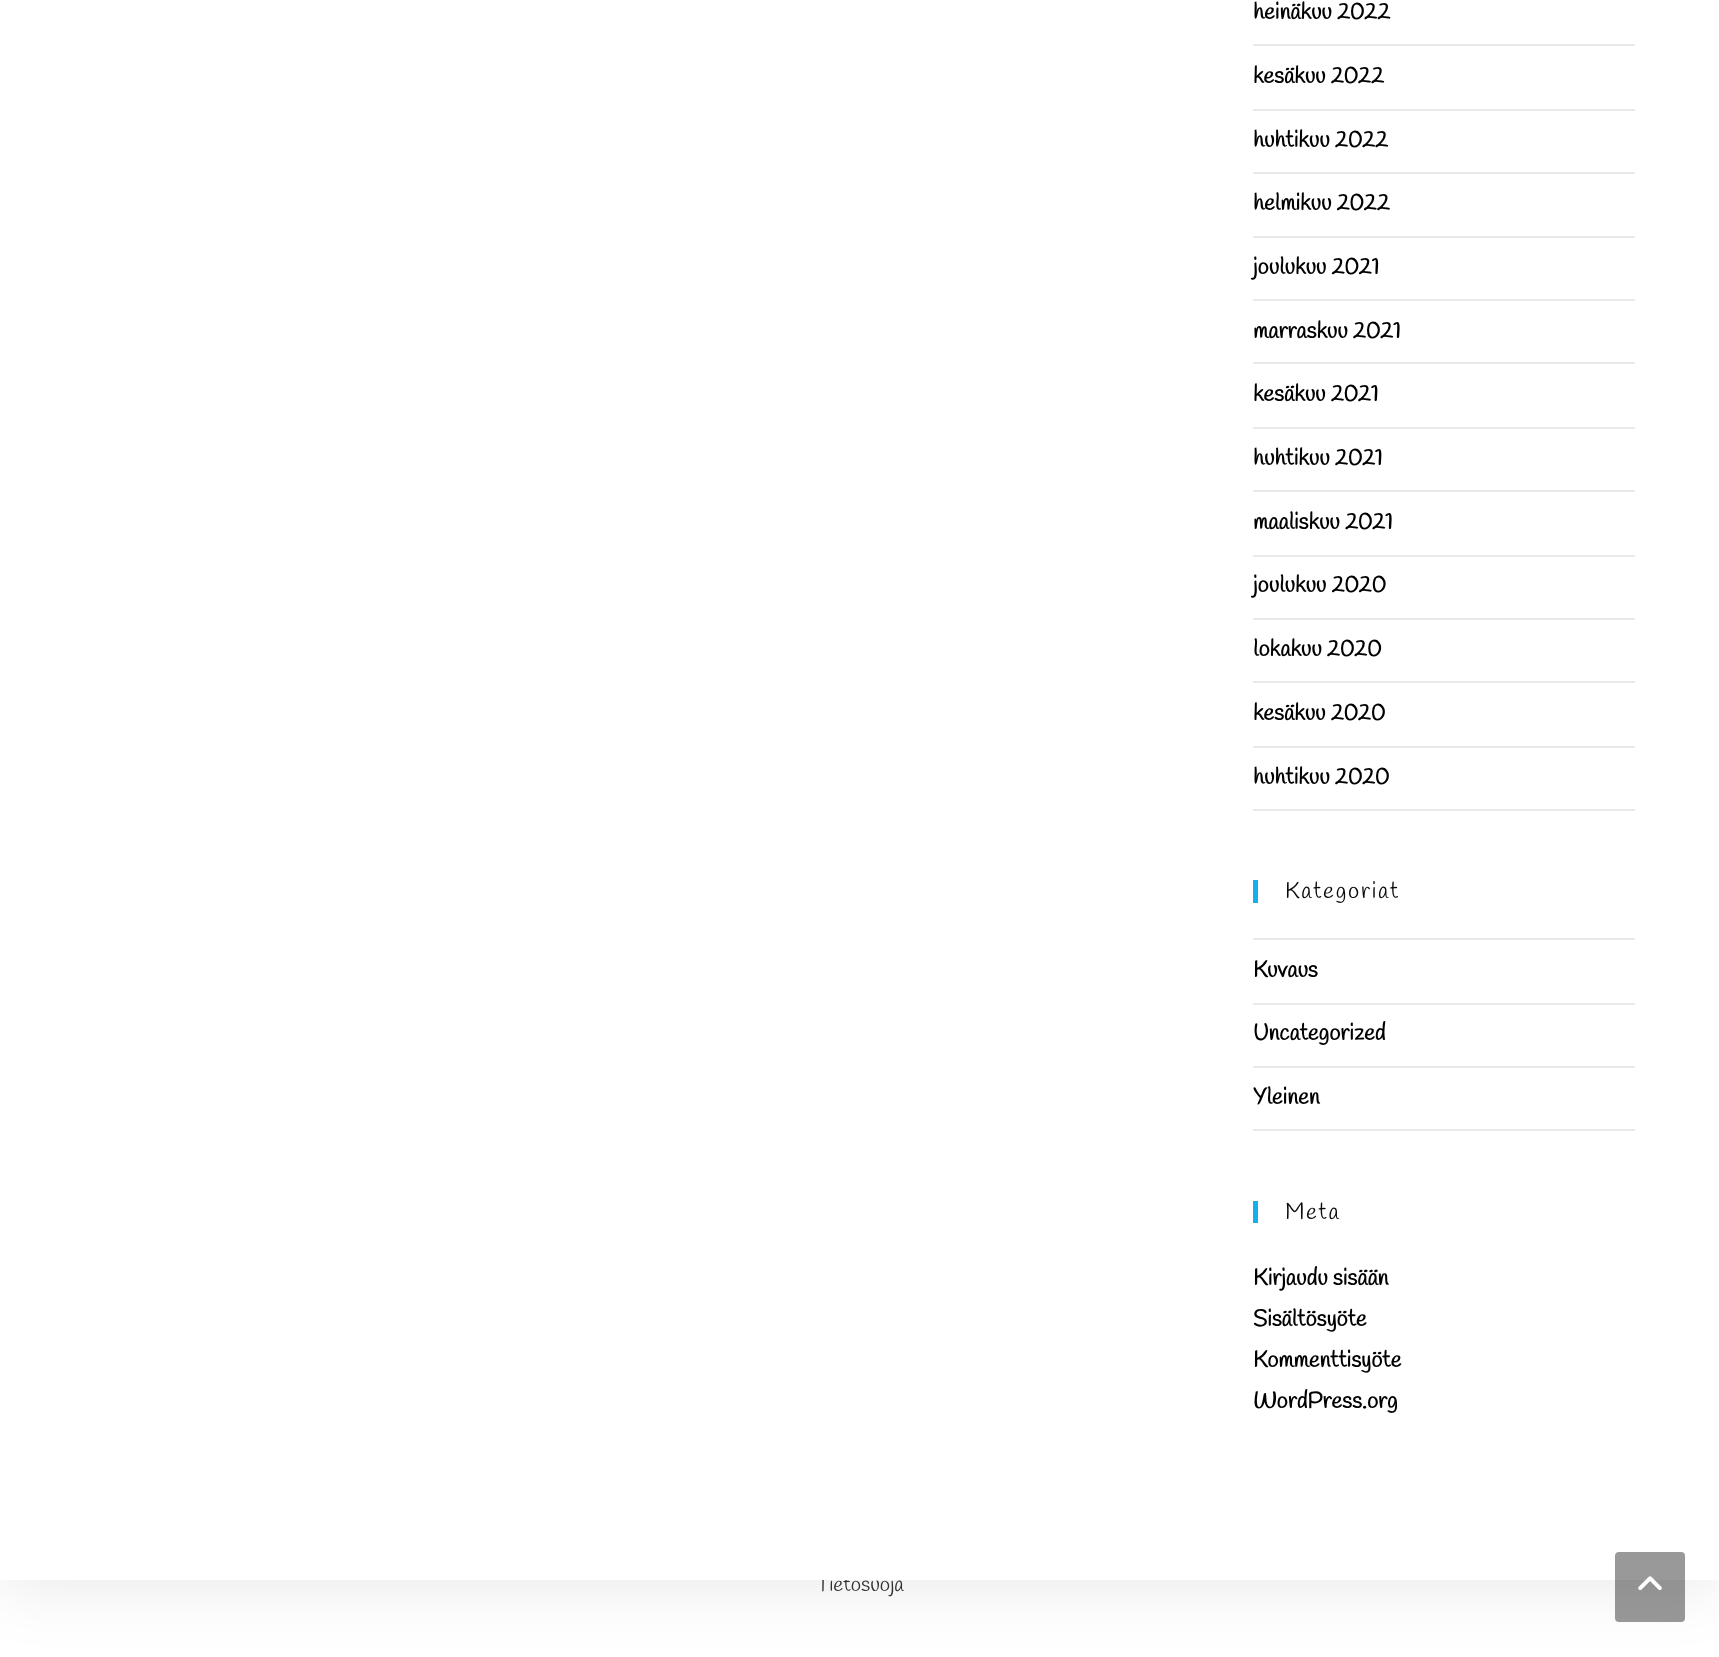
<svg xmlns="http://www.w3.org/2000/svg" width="1719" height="1657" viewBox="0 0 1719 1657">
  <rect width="100%" height="100%" fill="#fff"/>
  <path d="M0 -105h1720v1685H0z" fill="#0000001a" filter="blur(35px)"/>
  <text x="816" y="1591" font-family="Handlee" font-size="21" fill="#313131">Tietosuoja</text>
  <path d="M0 0h1719v1580H0z" fill="#fff"/>
  <g font-family="Handlee" font-size="22.75" font-weight="bold" fill="#000">
    <text x="1253" y="1408">WordPress.org</text>
    <text x="1253" y="1367">Kommenttisyöte</text>
    <text x="1253" y="1326">Sisältösyöte</text>
    <text x="1253" y="1285">Kirjaudu sisään</text>
  </g>
  <text x="1285" y="1219" font-family="Handlee" font-size="22.75" letter-spacing="1.75" fill="#0a0a0a">Meta</text>
  <g font-family="Handlee" font-size="22.75" font-weight="bold" fill="#000">
    <text x="1253" y="1104">Yleinen</text>
    <text x="1253" y="1040">Uncategorized</text>
    <text x="1253" y="977">Kuvaus</text>
  </g>
  <text x="1285" y="898" font-family="Handlee" font-size="22.75" letter-spacing="1.75" fill="#0a0a0a">Kategoriat</text>
  <g font-family="Handlee" font-size="22.75" font-weight="bold" fill="#000">
    <text x="1253" y="784">huhtikuu 2020</text>
    <text x="1253" y="720">kesäkuu 2020</text>
    <text x="1253" y="656">lokakuu 2020</text>
    <text x="1253" y="592">joulukuu 2020</text>
    <text x="1253" y="529">maaliskuu 2021</text>
    <text x="1253" y="465">huhtikuu 2021</text>
    <text x="1253" y="401">kesäkuu 2021</text>
    <text x="1253" y="338">marraskuu 2021</text>
    <text x="1253" y="274">joulukuu 2021</text>
    <text x="1253" y="210">helmikuu 2022</text>
    <text x="1253" y="147">huhtikuu 2022</text>
    <text x="1253" y="83">kesäkuu 2022</text>
    <text x="1253" y="19">heinäkuu 2022</text>
  </g>
  <path d="M1253 1201h5v22H1253z" fill="#13aff0"/>
  <path d="M1253 1129h382v2H1253z" fill="#e9e9e9"/>
  <path d="M1253 1066h382v2H1253z" fill="#e9e9e9"/>
  <path d="M1253 1003h382v2H1253z" fill="#e9e9e9"/>
  <path d="M1253 938h382v2H1253z" fill="#e9e9e9"/>
  <path d="M1253 880h5v23H1253z" fill="#13aff0"/>
  <path d="M1253 809h382v2H1253z" fill="#e9e9e9"/>
  <path d="M1253 746h382v2H1253z" fill="#e9e9e9"/>
  <path d="M1253 681h382v2H1253z" fill="#e9e9e9"/>
  <path d="M1253 618h382v2H1253z" fill="#e9e9e9"/>
  <path d="M1253 555h382v2H1253z" fill="#e9e9e9"/>
  <path d="M1253 490h382v2H1253z" fill="#e9e9e9"/>
  <path d="M1253 427h382v2H1253z" fill="#e9e9e9"/>
  <path d="M1253 362h382v2H1253z" fill="#e9e9e9"/>
  <path d="M1253 299h382v2H1253z" fill="#e9e9e9"/>
  <path d="M1253 236h382v2H1253z" fill="#e9e9e9"/>
  <path d="M1253 172h382v2H1253z" fill="#e9e9e9"/>
  <path d="M1253 109h382v2H1253z" fill="#e9e9e9"/>
  <path d="M1253 44h382v2H1253z" fill="#e9e9e9"/>
  <rect x="1615" y="1552" width="70" height="70" rx="4" fill="#00000066"/>
  <image x="1638" y="1576" width="24" height="14" href="img/1.png"/>
</svg>
